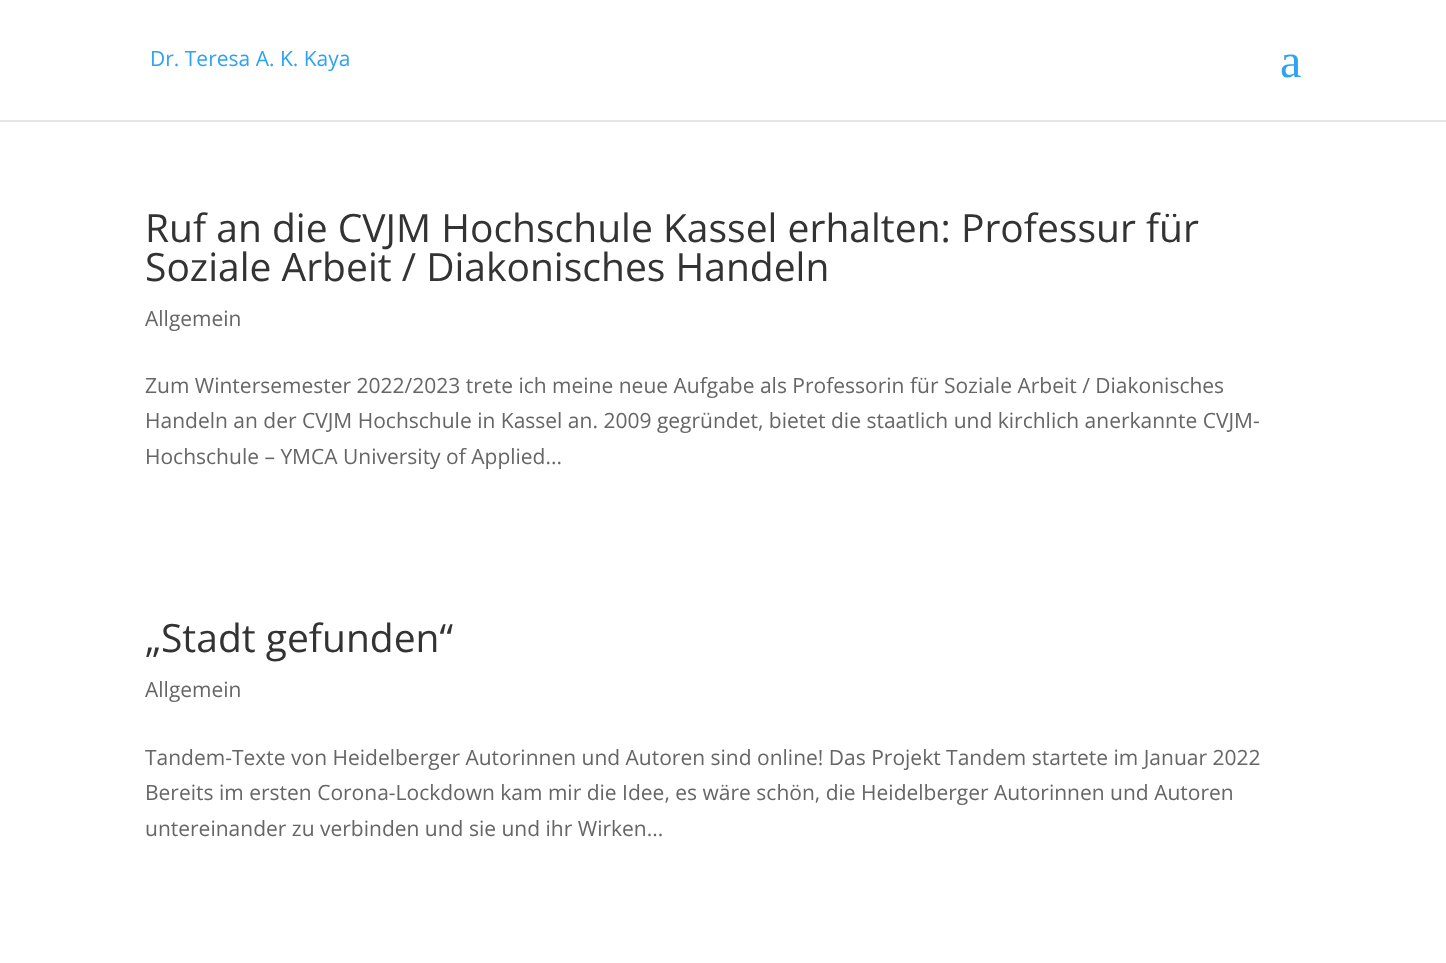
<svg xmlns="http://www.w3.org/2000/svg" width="1446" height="963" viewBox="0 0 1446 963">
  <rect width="100%" height="100%" fill="#fff"/>
  <path d="M0 120h1446v2H0z" fill="#e6e6e6"/>
  <text x="150" y="66" font-family="Open Sans" font-size="21" fill="#2ea3f2">Dr. Teresa A. K. Kaya</text>
  <text x="1280" y="77" font-family="Liberation Serif" font-size="48" fill="#2ea3f2">a</text>
  <g font-family="Open Sans" font-size="39" fill="#333">
    <text x="145" y="242">Ruf an die CVJM Hochschule Kassel erhalten: Professur für</text>
    <text x="145" y="281">Soziale Arbeit / Diakonisches Handeln</text>
  </g>
  <g font-family="Open Sans" font-size="21" fill="#666">
    <text x="145" y="326">Allgemein</text>
    <text x="145" y="393">Zum Wintersemester 2022/2023 trete ich meine neue Aufgabe als Professorin für Soziale Arbeit / Diakonisches</text>
    <text x="145" y="428">Handeln an der CVJM Hochschule in Kassel an. 2009 gegründet, bietet die staatlich und kirchlich anerkannte CVJM-</text>
    <text x="145" y="464">Hochschule – YMCA University of Applied...</text>
  </g>
  <text x="145" y="652" font-family="Open Sans" font-size="39" fill="#333">„Stadt gefunden“</text>
  <g font-family="Open Sans" font-size="21" fill="#666">
    <text x="145" y="697">Allgemein</text>
    <text x="145" y="765">Tandem-Texte von Heidelberger Autorinnen und Autoren sind online! Das Projekt Tandem startete im Januar 2022</text>
    <text x="145" y="800">Bereits im ersten Corona-Lockdown kam mir die Idee, es wäre schön, die Heidelberger Autorinnen und Autoren</text>
    <text x="145" y="836">untereinander zu verbinden und sie und ihr Wirken...</text>
  </g>
</svg>
